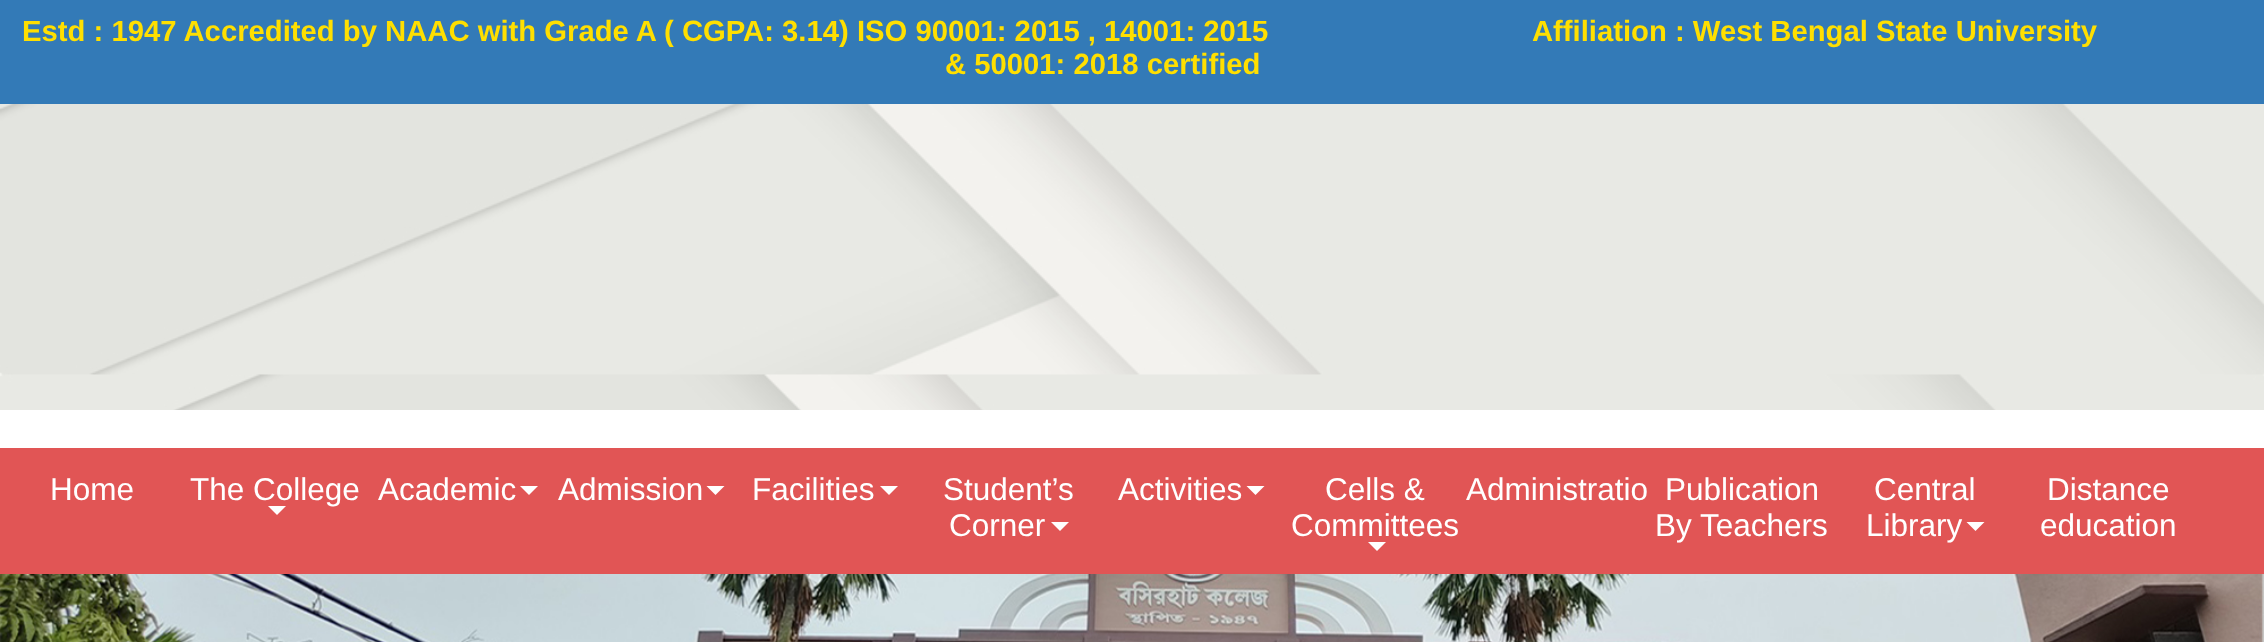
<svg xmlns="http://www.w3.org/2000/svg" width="2264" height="642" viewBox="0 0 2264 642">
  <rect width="100%" height="100%" fill="#fff"/>
  <image x="0" y="104" width="2264" height="306" href="img/1.png"/>
  <path d="M0 0h2264v104H0z" fill="#337ab7"/>
  <image x="0" y="574" width="2264" height="68" href="img/2.png"/>
  <path d="M0 448h2264v126H0z" fill="#e15555"/>
  <path d="M268 506H286L277 515Z" fill="#fff"/>
  <path d="M520 486H538L529 495Z" fill="#fff"/>
  <path d="M706.5 486H724.5L715.5 495Z" fill="#fff"/>
  <path d="M880 486H898L889 495Z" fill="#fff"/>
  <path d="M1051 522H1069L1060 531Z" fill="#fff"/>
  <path d="M1246.5 486H1264.5L1255.5 495Z" fill="#fff"/>
  <path d="M1368 542H1386L1377 551Z" fill="#fff"/>
  <path d="M1966.5 522H1984.5L1975.5 531Z" fill="#fff"/>
  <g font-family="Liberation Sans" font-size="29.25" font-weight="bold" fill="#ffdf00">
    <text x="22" y="41">Estd : 1947 Accredited by NAAC with Grade A ( CGPA: 3.14) ISO 90001: 2015 , 14001: 2015</text>
    <text x="945" y="74">&amp; 50001: 2018 certified</text>
    <text x="1532" y="41">Affiliation : West Bengal State University</text>
  </g>
  <g font-family="Liberation Sans" font-size="31.5" fill="#fff">
    <text x="50" y="500">Home</text>
    <text x="190" y="500">The College</text>
    <text x="378" y="500">Academic</text>
    <text x="558" y="500">Admission</text>
    <text x="752" y="500">Facilities</text>
    <text x="943" y="500">Student’s</text>
    <text x="949" y="536">Corner</text>
    <text x="1118" y="500">Activities</text>
    <text x="1325" y="500">Cells &amp;</text>
    <text x="1291" y="536">Committees</text>
    <text x="1466" y="500">Administratio</text>
    <text x="1665" y="500">Publication</text>
    <text x="1655" y="536">By Teachers</text>
    <text x="1874" y="500">Central</text>
    <text x="1866" y="536">Library</text>
    <text x="2047" y="500">Distance</text>
    <text x="2040" y="536">education</text>
  </g>
</svg>
